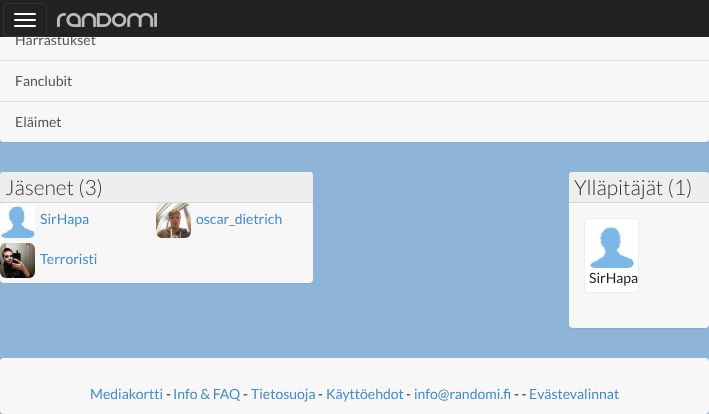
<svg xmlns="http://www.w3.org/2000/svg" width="709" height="414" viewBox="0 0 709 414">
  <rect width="100%" height="100%" fill="#8eb4d7"/>
  <rect y="-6" width="709" height="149" rx="4" fill="#0000000d" filter="blur(0.5px)"/>
  <rect y="-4" width="709" height="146" rx="4" fill="#f7f7f7"/>
  <path d="M0 60h709v1H0z" fill="#ddd"/>
  <path d="M0 101H709V139C709 140.5 707.5 142 706 142H3C1.5 142 0 140.5 0 139Z" fill="#f7f7f7"/>
  <path d="M0 101h709v1H0z" fill="#ddd"/>
  <rect y="173" width="313" height="111" rx="4" fill="#0000000d" filter="blur(0.5px)"/>
  <rect y="172" width="313" height="111" rx="4" fill="#f7f7f7"/>
  <path d="M3 172H310C311.5 172 313 173.5 313 175V203H0V175C0 173.5 1.5 172 3 172Z" fill="#eee"/>
  <path d="M0 202h313v1H0z" fill="#d3d3d3"/>
  <image x="0" y="203" width="35" height="35" href="img/2.png"/>
  <image x="156" y="203" width="35" height="35" href="img/3.png"/>
  <image x="0" y="243" width="35" height="35" href="img/4.png"/>
  <rect x="569" y="173" width="140" height="156" rx="4" fill="#0000000d" filter="blur(0.5px)"/>
  <rect x="569" y="172" width="140" height="156" rx="4" fill="#f7f7f7"/>
  <path d="M572 172H706C707.5 172 709 173.5 709 175V203H569V175C569 173.5 570.5 172 572 172Z" fill="#eee"/>
  <path d="M569 202h140v1H569z" fill="#d3d3d3"/>
  <rect x="584.5" y="218.5" width="54" height="74" rx="3.5" fill="#fff" stroke="#eee"/>
  <image x="589" y="223" width="45" height="45" href="img/5.png"/>
  <rect y="359" width="709" height="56" rx="4" fill="#0000000d" filter="blur(0.5px)"/>
  <rect y="358" width="709" height="56" rx="4" fill="#f7f7f7"/>
  <text x="15" y="45" font-family="Lato" font-size="14" fill="#555">Harrastukset</text>
  <path d="M0 0h709v37H0z" fill="#222"/>
  <image x="57" y="13" width="100" height="14" href="img/1.png"/>
  <rect x="3.5" y="3.5" width="43" height="33" rx="3.5" fill="none" stroke="#333"/>
  <rect x="14" y="25" width="22" height="2" rx="1" fill="#fff"/>
  <rect x="14" y="19" width="22" height="2" rx="1" fill="#fff"/>
  <rect x="14" y="13" width="22" height="2" rx="1" fill="#fff"/>
  <g font-family="Lato" font-size="14" fill="#555">
    <text x="15" y="86">Fanclubit</text>
    <text x="15" y="127">Eläimet</text>
  </g>
  <text x="5" y="195" font-family="Lato" font-size="21" font-weight="300" fill="#333">Jäsenet (3)</text>
  <g font-family="Lato" font-size="14" fill="#428bca">
    <text x="40" y="224">SirHapa</text>
    <text x="196" y="224">oscar_dietrich</text>
    <text x="40" y="264">Terroristi</text>
  </g>
  <text x="574" y="195" font-family="Lato" font-size="21" font-weight="300" fill="#333">Ylläpitäjät (1)</text>
  <text x="589" y="283" font-family="Lato" font-size="14" fill="#222">SirHapa</text>
  <text x="90" y="399" font-family="Lato" font-size="14" fill="#428bca">Mediakortti</text>
  <text x="166" y="399" font-family="Lato" font-size="14" fill="#222">-</text>
  <text x="173" y="399" font-family="Lato" font-size="14" fill="#428bca">Info &amp; FAQ</text>
  <text x="243" y="399" font-family="Lato" font-size="14" fill="#222">-</text>
  <text x="251" y="399" font-family="Lato" font-size="14" fill="#428bca">Tietosuoja</text>
  <text x="318" y="399" font-family="Lato" font-size="14" fill="#222">-</text>
  <text x="326" y="399" font-family="Lato" font-size="14" fill="#428bca">Käyttöehdot</text>
  <text x="406" y="399" font-family="Lato" font-size="14" fill="#222">-</text>
  <text x="414" y="399" font-family="Lato" font-size="14" fill="#428bca">info@randomi.fi</text>
  <text x="514" y="399" font-family="Lato" font-size="14" fill="#222">- -</text>
  <text x="529" y="399" font-family="Lato" font-size="14" fill="#428bca">Evästevalinnat</text>
</svg>
